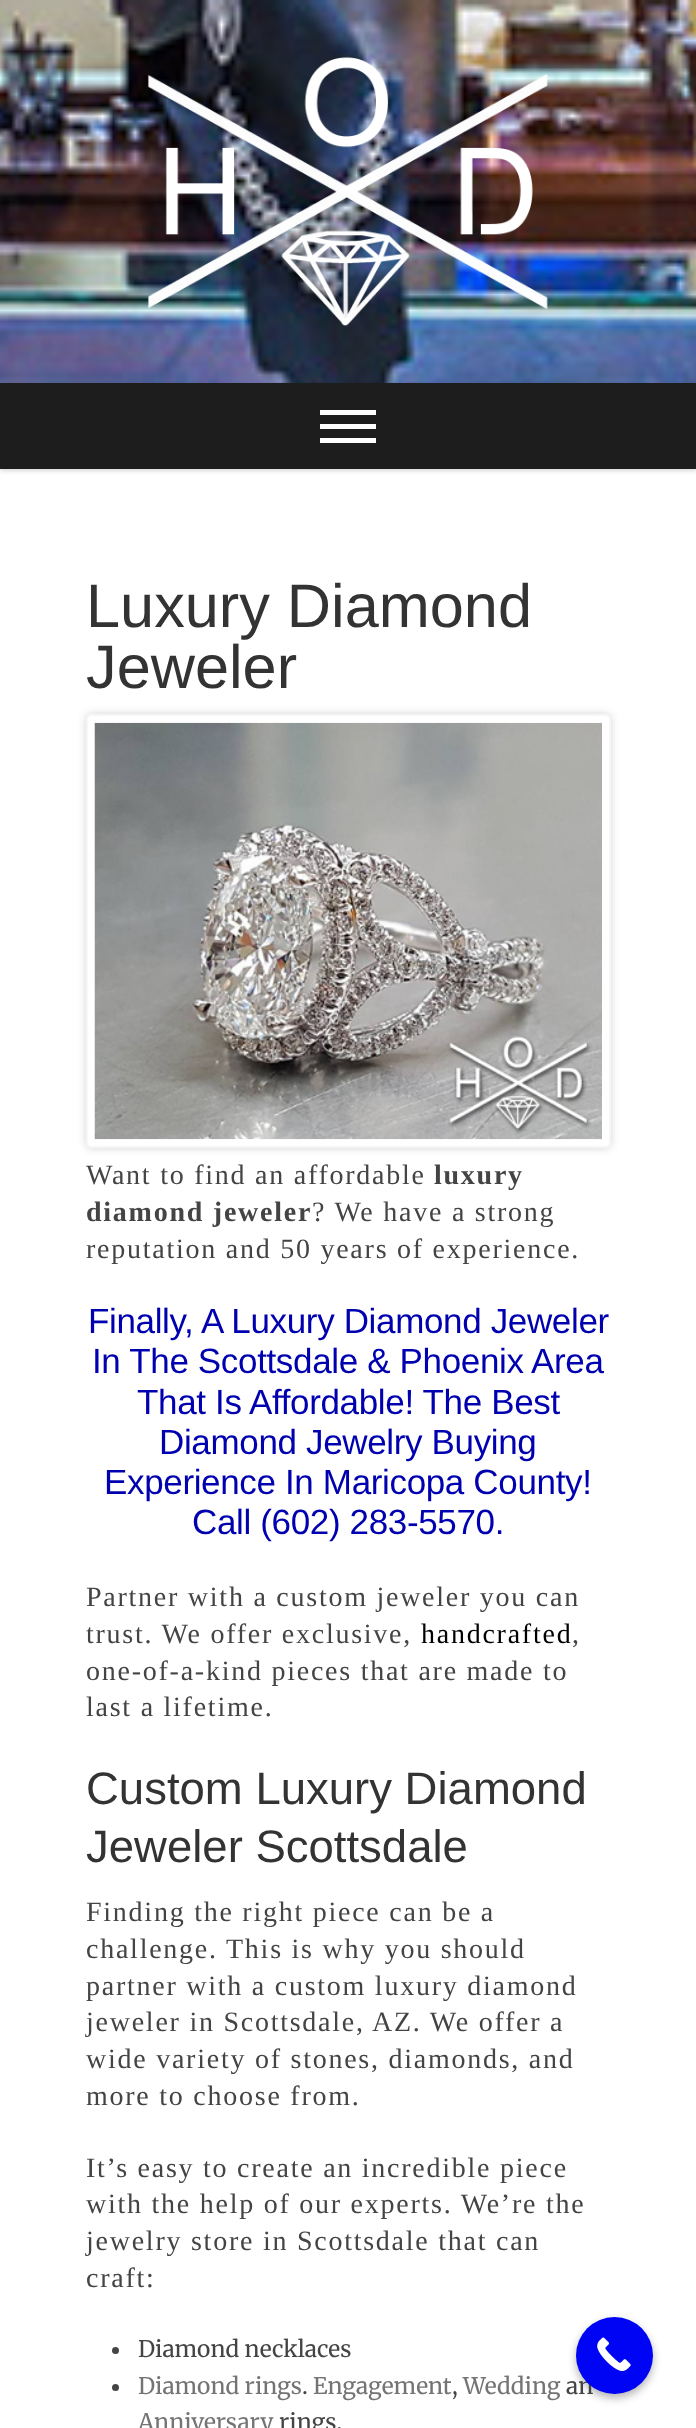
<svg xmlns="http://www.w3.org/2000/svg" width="696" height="2428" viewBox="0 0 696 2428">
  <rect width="100%" height="100%" fill="#fff"/>
  <image x="0" y="0" width="696" height="383" href="img/1.png"/>
  <image x="147" y="57" width="401" height="269" href="img/2.png"/>
  <path d="M0 385h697v86H0z" fill="#00000026" filter="blur(2px)"/>
  <path d="M0 383h696v86H0z" fill="#1d1d1d"/>
  <path d="M320 410h56v5H320z" fill="#fff"/>
  <path d="M320 424h56v5H320z" fill="#fff"/>
  <path d="M320 438h56v5H320z" fill="#fff"/>
  <rect x="86" y="714" width="525" height="434" rx="5" fill="#0000002b" filter="blur(4.5px)"/>
  <rect x="87" y="715" width="523" height="432" rx="4" fill="#fff" stroke="#f6f6f6" stroke-width="2"/>
  <image x="94" y="722" width="508" height="418" href="img/3.png"/>
  <circle cx="115.5" cy="2350.5" r="3.5" fill="#444"/>
  <circle cx="115.5" cy="2387.5" r="3.5" fill="#444"/>
  <rect x="576" y="2321" width="77" height="77" rx="38.5" fill="#0000004d" filter="blur(4px)"/>
  <g font-family="Liberation Sans" font-size="61.25" fill="#333">
    <text x="86" y="627">Luxury Diamond</text>
    <text x="86" y="688">Jeweler</text>
  </g>
  <text x="86" y="1184" font-family="Liberation Serif" font-size="28" letter-spacing="1.75" fill="#444">Want to find an affordable</text>
  <g font-family="Liberation Serif" font-size="28" font-weight="bold" letter-spacing="1.75" fill="#444">
    <text x="434" y="1184">luxury</text>
    <text x="86" y="1221">diamond jeweler</text>
  </g>
  <g font-family="Liberation Serif" font-size="28" letter-spacing="1.75" fill="#444">
    <text x="312" y="1221">? We have a strong</text>
    <text x="86" y="1258">reputation and 50 years of experience.</text>
  </g>
  <g font-family="Liberation Sans" font-size="35" letter-spacing="-0.35" fill="#0000b1">
    <text x="88" y="1333">Finally, A Luxury Diamond Jeweler</text>
    <text x="92" y="1373">In The Scottsdale &amp; Phoenix Area</text>
    <text x="137" y="1414">That Is Affordable! The Best</text>
    <text x="159" y="1454">Diamond Jewelry Buying</text>
    <text x="104" y="1494">Experience In Maricopa County!</text>
    <text x="192" y="1534">Call (602) 283-5570.</text>
  </g>
  <g font-family="Liberation Serif" font-size="28" letter-spacing="1.75" fill="#444">
    <text x="86" y="1606">Partner with a custom jeweler you can</text>
    <text x="86" y="1643">trust. We offer exclusive,</text>
  </g>
  <text x="421" y="1643" font-family="Liberation Serif" font-size="28" letter-spacing="1.75" fill="#000">handcrafted</text>
  <g font-family="Liberation Serif" font-size="28" letter-spacing="1.75" fill="#444">
    <text x="572" y="1643">,</text>
    <text x="86" y="1680">one-of-a-kind pieces that are made to</text>
    <text x="86" y="1716">last a lifetime.</text>
  </g>
  <g font-family="Liberation Sans" font-size="45.5" fill="#333">
    <text x="86" y="1804">Custom Luxury Diamond</text>
    <text x="86" y="1862">Jeweler Scottsdale</text>
  </g>
  <g font-family="Liberation Serif" font-size="28" letter-spacing="1.75" fill="#444">
    <text x="86" y="1921">Finding the right piece can be a</text>
    <text x="86" y="1958">challenge. This is why you should</text>
    <text x="86" y="1995">partner with a custom luxury diamond</text>
    <text x="86" y="2031">jeweler in Scottsdale, AZ. We offer a</text>
    <text x="86" y="2068">wide variety of stones, diamonds, and</text>
    <text x="86" y="2105">more to choose from.</text>
    <text x="86" y="2177">It’s easy to create an incredible piece</text>
    <text x="86" y="2213">with the help of our experts. We’re the</text>
    <text x="86" y="2250">jewelry store in Scottsdale that can</text>
    <text x="86" y="2287">craft:</text>
  </g>
  <text x="138" y="2357" font-family="Merriweather" font-size="22.75" font-weight="300" fill="#444">Diamond necklaces</text>
  <g font-family="Merriweather" font-size="22.75" font-weight="300" fill="#747474">
    <text x="138" y="2394">Diamond rings</text>
    <text x="313" y="2394">Engagement</text>
    <text x="463" y="2394">Wedding</text>
  </g>
  <g font-family="Merriweather" font-size="22.75" font-weight="300" fill="#444">
    <text x="566" y="2394">an</text>
    <text x="302" y="2394">.</text>
    <text x="452" y="2394">,</text>
  </g>
  <text x="138" y="2430" font-family="Merriweather" font-size="22.75" font-weight="300" fill="#747474">Anniversary</text>
  <text x="279" y="2430" font-family="Merriweather" font-size="22.75" font-weight="300" fill="#444">rings.</text>
  <circle cx="614.5" cy="2355.5" r="38.5" fill="#0004f4"/>
  <image x="597" y="2337" width="34" height="34" href="img/4.png"/>
</svg>
